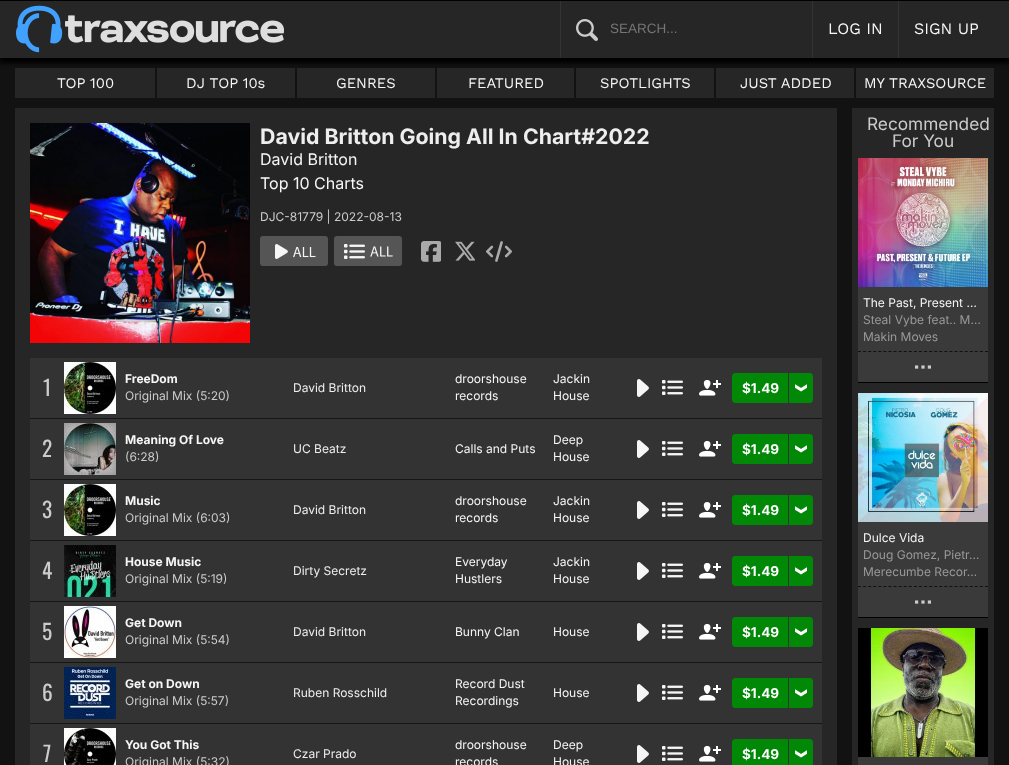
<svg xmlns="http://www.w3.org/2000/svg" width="1009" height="765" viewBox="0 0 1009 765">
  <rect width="100%" height="100%" fill="#121212"/>
  <path d="M15 68h140v30H15z" fill="#262626"/>
  <path d="M157 68h138v30H157z" fill="#262626"/>
  <path d="M297 68h138v30H297z" fill="#262626"/>
  <path d="M437 68h137v30H437z" fill="#262626"/>
  <path d="M576 68h138v30H576z" fill="#262626"/>
  <path d="M716 68h138v30H716z" fill="#262626"/>
  <path d="M856 68h138v30H856z" fill="#262626"/>
  <path d="M-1 3h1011v60H-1z" fill="#000" filter="blur(2.5px)"/>
  <path d="M0 1h1009v57H0z" fill="#262626"/>
  <path d="M560 0h1v58H560z" fill="#333"/>
  <path d="M812 0h1v58H812z" fill="#333"/>
  <path d="M898 0h1v58H898z" fill="#333"/>
  <path d="M0 0h1009v1H0z" fill="#000"/>
  <image x="16" y="5" width="268" height="48" href="img/1.png"/>
  <image x="576" y="19" width="22" height="22" href="img/2.png"/>
  <path d="M15 108h822v657H15z" fill="#262626"/>
  <image x="30" y="123" width="220" height="220" href="img/3.png"/>
  <rect x="260" y="236" width="68" height="30" rx="3" fill="#555"/>
  <image x="275" y="244" width="41" height="15" href="img/4.png"/>
  <rect x="334" y="236" width="68" height="30" rx="3" fill="#555"/>
  <image x="344" y="244" width="49" height="15" href="img/5.png"/>
  <image x="421" y="241" width="20" height="21" href="img/6.png"/>
  <image x="455" y="241" width="20" height="20" href="img/7.png"/>
  <image x="486" y="241" width="26" height="21" href="img/8.png"/>
  <path d="M30 358h792v60H30z" fill="#333"/>
  <path d="M30 418h792v1H30z" fill="#161616"/>
  <image x="64" y="362" width="52" height="52" href="img/9.png"/>
  <image x="637" y="379" width="12" height="18" href="img/10.png"/>
  <image x="662" y="380" width="21" height="15" href="img/11.png"/>
  <image x="699" y="380" width="22" height="16" href="img/12.png"/>
  <path d="M735 373H788V403H735C733.5 403 732 401.5 732 400V376C732 374.5 733.5 373 735 373Z" fill="#008806"/>
  <path d="M789 373H810C811.5 373 813 374.5 813 376V400C813 401.5 811.5 403 810 403H789Z" fill="#008806"/>
  <image x="795" y="384" width="12" height="8" href="img/13.png"/>
  <path d="M30 419h792v60H30z" fill="#333"/>
  <path d="M30 479h792v1H30z" fill="#161616"/>
  <image x="64" y="423" width="52" height="52" href="img/14.png"/>
  <image x="637" y="440" width="12" height="18" href="img/10.png"/>
  <image x="662" y="441" width="21" height="15" href="img/11.png"/>
  <image x="699" y="441" width="22" height="16" href="img/12.png"/>
  <path d="M735 434H788V464H735C733.5 464 732 462.5 732 461V437C732 435.5 733.5 434 735 434Z" fill="#008806"/>
  <path d="M789 434H810C811.5 434 813 435.5 813 437V461C813 462.5 811.5 464 810 464H789Z" fill="#008806"/>
  <image x="795" y="445" width="12" height="8" href="img/13.png"/>
  <path d="M30 480h792v60H30z" fill="#333"/>
  <path d="M30 540h792v1H30z" fill="#161616"/>
  <image x="64" y="484" width="52" height="52" href="img/9.png"/>
  <image x="637" y="501" width="12" height="18" href="img/10.png"/>
  <image x="662" y="502" width="21" height="15" href="img/11.png"/>
  <image x="699" y="502" width="22" height="16" href="img/15.png"/>
  <path d="M735 495H788V525H735C733.5 525 732 523.5 732 522V498C732 496.5 733.5 495 735 495Z" fill="#008806"/>
  <path d="M789 495H810C811.5 495 813 496.5 813 498V522C813 523.5 811.5 525 810 525H789Z" fill="#008806"/>
  <image x="795" y="506" width="12" height="8" href="img/13.png"/>
  <path d="M30 541h792v60H30z" fill="#333"/>
  <path d="M30 601h792v1H30z" fill="#161616"/>
  <image x="64" y="545" width="52" height="52" href="img/16.png"/>
  <image x="637" y="562" width="12" height="18" href="img/10.png"/>
  <image x="662" y="563" width="21" height="15" href="img/11.png"/>
  <image x="699" y="563" width="22" height="16" href="img/12.png"/>
  <path d="M735 556H788V586H735C733.5 586 732 584.5 732 583V559C732 557.5 733.5 556 735 556Z" fill="#008806"/>
  <path d="M789 556H810C811.5 556 813 557.5 813 559V583C813 584.5 811.5 586 810 586H789Z" fill="#008806"/>
  <image x="795" y="567" width="12" height="8" href="img/13.png"/>
  <path d="M30 602h792v60H30z" fill="#333"/>
  <path d="M30 662h792v1H30z" fill="#161616"/>
  <image x="64" y="606" width="52" height="52" href="img/17.png"/>
  <image x="637" y="623" width="12" height="18" href="img/10.png"/>
  <image x="662" y="624" width="21" height="15" href="img/11.png"/>
  <image x="699" y="624" width="22" height="16" href="img/12.png"/>
  <path d="M735 617H788V647H735C733.5 647 732 645.5 732 644V620C732 618.5 733.5 617 735 617Z" fill="#008806"/>
  <path d="M789 617H810C811.5 617 813 618.5 813 620V644C813 645.5 811.5 647 810 647H789Z" fill="#008806"/>
  <image x="795" y="628" width="12" height="8" href="img/13.png"/>
  <path d="M30 663h792v60H30z" fill="#333"/>
  <path d="M30 723h792v1H30z" fill="#161616"/>
  <image x="64" y="667" width="52" height="52" href="img/18.png"/>
  <image x="637" y="684" width="12" height="18" href="img/10.png"/>
  <image x="662" y="685" width="21" height="15" href="img/11.png"/>
  <image x="699" y="685" width="22" height="16" href="img/12.png"/>
  <path d="M735 678H788V708H735C733.5 708 732 706.5 732 705V681C732 679.5 733.5 678 735 678Z" fill="#008806"/>
  <path d="M789 678H810C811.5 678 813 679.5 813 681V705C813 706.5 811.5 708 810 708H789Z" fill="#008806"/>
  <image x="795" y="689" width="12" height="8" href="img/13.png"/>
  <path d="M30 724h792v41H30z" fill="#333"/>
  <image x="64" y="728" width="52" height="37" href="img/19.png"/>
  <image x="637" y="745" width="12" height="18" href="img/10.png"/>
  <image x="662" y="746" width="21" height="15" href="img/11.png"/>
  <image x="699" y="746" width="22" height="16" href="img/12.png"/>
  <path d="M735 739H788V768H735C733.5 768 732 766.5 732 765V742C732 740.5 733.5 739 735 739Z" fill="#008806"/>
  <path d="M789 739H810C811.5 739 813 740.5 813 742V765C813 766.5 811.5 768 810 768H789Z" fill="#008806"/>
  <image x="795" y="750" width="12" height="8" href="img/13.png"/>
  <path d="M852 108h142v657H852z" fill="#262626"/>
  <path d="M858 287h130v95H858z" fill="#3a3a3a"/>
  <image x="858" y="158" width="130" height="129" href="img/20.png"/>
  <path d="M858 351.5H988" fill="none" stroke="#111" stroke-dasharray="3 2.08"/>
  <path d="M858 382h130v1H858z" fill="#000"/>
  <image x="915" y="365" width="16" height="4" href="img/21.png"/>
  <path d="M858 522h130v95H858z" fill="#3a3a3a"/>
  <image x="858" y="393" width="130" height="129" href="img/22.png"/>
  <path d="M858 586.5H988" fill="none" stroke="#111" stroke-dasharray="3 2.08"/>
  <path d="M858 617h130v1H858z" fill="#000"/>
  <image x="915" y="600" width="16" height="4" href="img/21.png"/>
  <path d="M858 757h130v8H858z" fill="#3a3a3a"/>
  <image x="858" y="628" width="130" height="129" href="img/23.png"/>
  <text x="610" y="33" font-family="Liberation Sans" font-size="13.5" fill="#757575">SEARCH...</text>
  <g font-family="Work Sans" font-size="16" fill="#f6f6f6">
    <text x="828" y="34">LOG IN</text>
    <text x="914" y="34">SIGN UP</text>
  </g>
  <g font-family="Work Sans" font-size="14.75" fill="#f6f6f6">
    <text x="57" y="88">TOP 100</text>
    <text x="186" y="88">DJ TOP 10s</text>
    <text x="336" y="88">GENRES</text>
    <text x="468" y="88">FEATURED</text>
    <text x="600" y="88">SPOTLIGHTS</text>
    <text x="740" y="88">JUST ADDED</text>
    <text x="864" y="88">MY TRAXSOURCE</text>
  </g>
  <text x="260" y="144" font-family="Inter" font-size="21.3" font-weight="bold" fill="#eee">David Britton Going All In Chart#2022</text>
  <g font-family="Inter" font-size="16" fill="#f6f6f6">
    <text x="260" y="165">David Britton</text>
    <text x="260" y="189">Top 10 Charts</text>
  </g>
  <text x="260" y="221" font-family="Inter" font-size="12" fill="#ccc">DJC-81779 | 2022-08-13</text>
  <text x="43" y="396" font-family="Oswald" font-size="21.3" letter-spacing="-1" fill="#ccc">1</text>
  <text x="125" y="383" font-family="Inter" font-size="12" font-weight="bold" fill="#f6f6f6">FreeDom</text>
  <text x="125" y="400" font-family="Inter" font-size="12" fill="#ccc">Original Mix (5:20)</text>
  <text x="293" y="392" font-family="Inter" font-size="12" fill="#eee">David Britton</text>
  <g font-family="Inter" font-size="12" fill="#f6f6f6">
    <text x="455" y="383">droorshouse</text>
    <text x="455" y="400">records</text>
    <text x="553" y="383">Jackin</text>
    <text x="553" y="400">House</text>
  </g>
  <text x="742" y="393" font-family="Inter" font-size="13.5" font-weight="bold" fill="#fff">$1.49</text>
  <text x="42" y="457" font-family="Oswald" font-size="21.3" letter-spacing="-1" fill="#ccc">2</text>
  <text x="125" y="444" font-family="Inter" font-size="12" font-weight="bold" fill="#f6f6f6">Meaning Of Love</text>
  <text x="125" y="461" font-family="Inter" font-size="12" fill="#ccc">(6:28)</text>
  <text x="293" y="453" font-family="Inter" font-size="12" fill="#eee">UC Beatz</text>
  <g font-family="Inter" font-size="12" fill="#f6f6f6">
    <text x="455" y="453">Calls and Puts</text>
    <text x="553" y="444">Deep</text>
    <text x="553" y="461">House</text>
  </g>
  <text x="742" y="454" font-family="Inter" font-size="13.5" font-weight="bold" fill="#fff">$1.49</text>
  <text x="42" y="518" font-family="Oswald" font-size="21.3" letter-spacing="-1" fill="#ccc">3</text>
  <text x="125" y="505" font-family="Inter" font-size="12" font-weight="bold" fill="#f6f6f6">Music</text>
  <text x="125" y="522" font-family="Inter" font-size="12" fill="#ccc">Original Mix (6:03)</text>
  <text x="293" y="514" font-family="Inter" font-size="12" fill="#eee">David Britton</text>
  <g font-family="Inter" font-size="12" fill="#f6f6f6">
    <text x="455" y="505">droorshouse</text>
    <text x="455" y="522">records</text>
    <text x="553" y="505">Jackin</text>
    <text x="553" y="522">House</text>
  </g>
  <text x="742" y="515" font-family="Inter" font-size="13.5" font-weight="bold" fill="#fff">$1.49</text>
  <text x="42" y="579" font-family="Oswald" font-size="21.3" letter-spacing="-1" fill="#ccc">4</text>
  <text x="125" y="566" font-family="Inter" font-size="12" font-weight="bold" fill="#f6f6f6">House Music</text>
  <text x="125" y="583" font-family="Inter" font-size="12" fill="#ccc">Original Mix (5:19)</text>
  <text x="293" y="575" font-family="Inter" font-size="12" fill="#eee">Dirty Secretz</text>
  <g font-family="Inter" font-size="12" fill="#f6f6f6">
    <text x="455" y="566">Everyday</text>
    <text x="455" y="583">Hustlers</text>
    <text x="553" y="566">Jackin</text>
    <text x="553" y="583">House</text>
  </g>
  <text x="742" y="576" font-family="Inter" font-size="13.5" font-weight="bold" fill="#fff">$1.49</text>
  <text x="42" y="640" font-family="Oswald" font-size="21.3" letter-spacing="-1" fill="#ccc">5</text>
  <text x="125" y="627" font-family="Inter" font-size="12" font-weight="bold" fill="#f6f6f6">Get Down</text>
  <text x="125" y="644" font-family="Inter" font-size="12" fill="#ccc">Original Mix (5:54)</text>
  <text x="293" y="636" font-family="Inter" font-size="12" fill="#eee">David Britton</text>
  <g font-family="Inter" font-size="12" fill="#f6f6f6">
    <text x="455" y="636">Bunny Clan</text>
    <text x="553" y="636">House</text>
  </g>
  <text x="742" y="637" font-family="Inter" font-size="13.5" font-weight="bold" fill="#fff">$1.49</text>
  <text x="42" y="701" font-family="Oswald" font-size="21.3" letter-spacing="-1" fill="#ccc">6</text>
  <text x="125" y="688" font-family="Inter" font-size="12" font-weight="bold" fill="#f6f6f6">Get on Down</text>
  <text x="125" y="705" font-family="Inter" font-size="12" fill="#ccc">Original Mix (5:57)</text>
  <text x="293" y="697" font-family="Inter" font-size="12" fill="#eee">Ruben Rosschild</text>
  <g font-family="Inter" font-size="12" fill="#f6f6f6">
    <text x="455" y="688">Record Dust</text>
    <text x="455" y="705">Recordings</text>
    <text x="553" y="697">House</text>
  </g>
  <text x="742" y="698" font-family="Inter" font-size="13.5" font-weight="bold" fill="#fff">$1.49</text>
  <text x="43" y="762" font-family="Oswald" font-size="21.3" letter-spacing="-1" fill="#ccc">7</text>
  <text x="125" y="749" font-family="Inter" font-size="12" font-weight="bold" fill="#f6f6f6">You Got This</text>
  <text x="125" y="766" font-family="Inter" font-size="12" fill="#ccc">Original Mix (5:32)</text>
  <text x="293" y="758" font-family="Inter" font-size="12" fill="#eee">Czar Prado</text>
  <g font-family="Inter" font-size="12" fill="#f6f6f6">
    <text x="455" y="749">droorshouse</text>
    <text x="455" y="766">records</text>
    <text x="553" y="749">Deep</text>
    <text x="553" y="766">House</text>
  </g>
  <text x="742" y="759" font-family="Inter" font-size="13.5" font-weight="bold" fill="#fff">$1.49</text>
  <g font-family="Inter" font-size="17.25" fill="#ccc">
    <text x="867" y="130">Recommended</text>
    <text x="892" y="147">For You</text>
  </g>
  <text x="863" y="307" font-family="Inter" font-size="12" fill="#f6f6f6">The Past, Present …</text>
  <g font-family="Inter" font-size="12" fill="#999">
    <text x="863" y="324">Steal Vybe feat.. M…</text>
    <text x="863" y="341">Makin Moves</text>
  </g>
  <text x="863" y="542" font-family="Inter" font-size="12" fill="#f6f6f6">Dulce Vida</text>
  <g font-family="Inter" font-size="12" fill="#999">
    <text x="863" y="559">Doug Gomez, Pietr…</text>
    <text x="863" y="576">Merecumbe Recor…</text>
  </g>
</svg>
